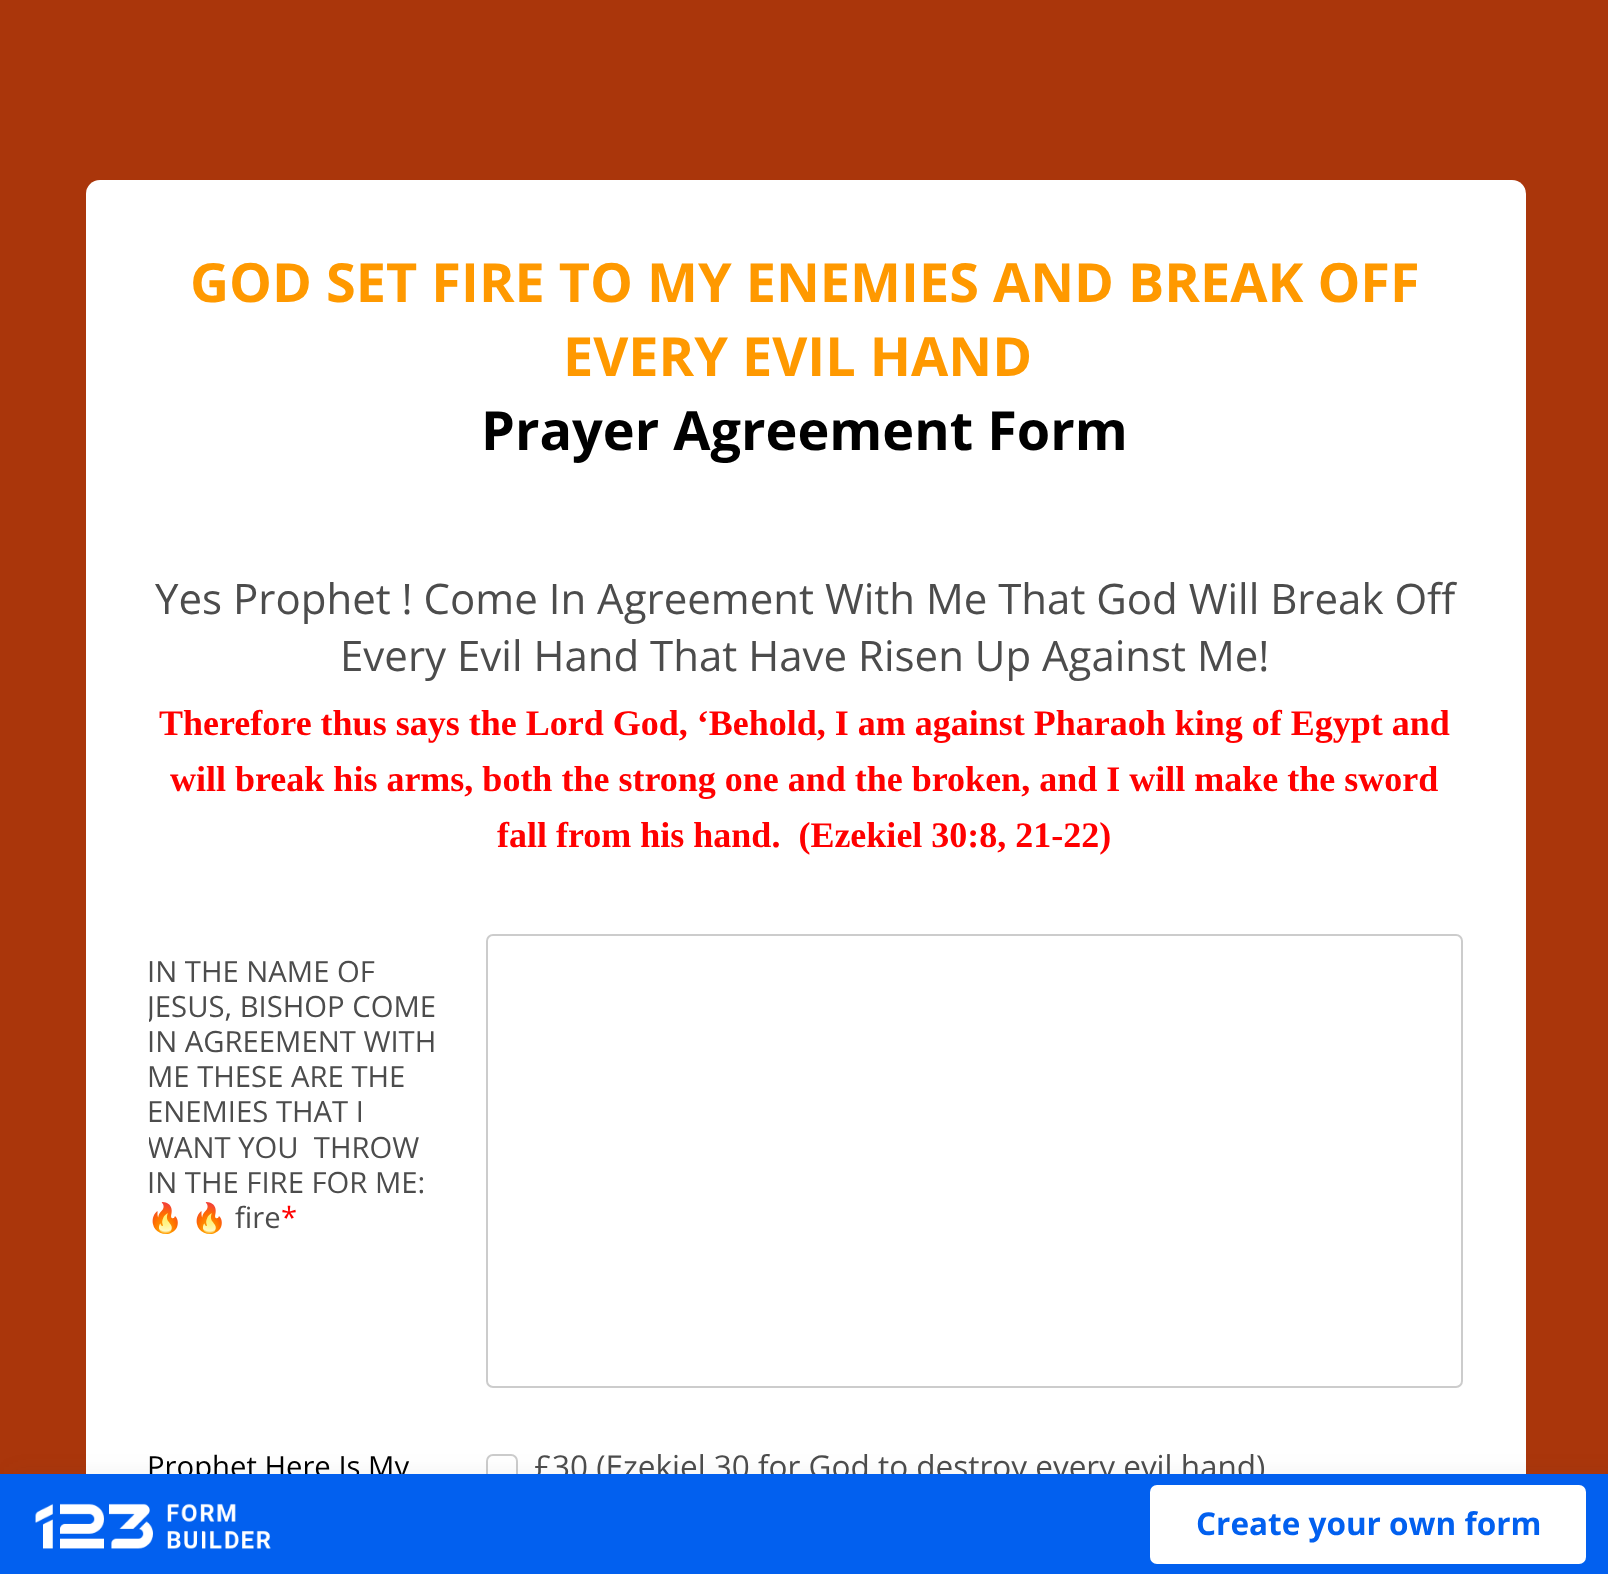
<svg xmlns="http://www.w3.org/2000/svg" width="1608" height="1574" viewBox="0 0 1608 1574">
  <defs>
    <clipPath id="clip1"><path d="M149 934h301v301H149z"/></clipPath>
  </defs>
  <rect width="100%" height="100%" fill="#aa360b"/>
  <rect x="86" y="180" width="1440" height="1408" rx="14" fill="#fff"/>
  <rect x="487" y="935" width="975" height="452" rx="6" fill="none" stroke="#ccc" stroke-width="2"/>
  <rect x="487" y="1455" width="30" height="29" rx="6" fill="none" stroke="#ccc" stroke-width="2"/>
  <path d="M11 1474h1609v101H11z" fill="#4c4c4c14" filter="blur(11px)"/>
  <g font-family="Open Sans" font-size="54" font-weight="bold" fill="#f90">
    <text x="190" y="302">GOD SET FIRE TO MY ENEMIES AND BREAK OFF</text>
    <text x="563" y="376">EVERY EVIL HAND</text>
  </g>
  <text x="481" y="450" font-family="Open Sans" font-size="54" font-weight="bold" fill="#000">Prayer Agreement Form</text>
  <g font-family="Open Sans" font-size="42" fill="#4c4c4c">
    <text x="155" y="614">Yes Prophet ! Come In Agreement With Me That God Will Break Off</text>
    <text x="340" y="671">Every Evil Hand That Have Risen Up Against Me!</text>
  </g>
  <g font-family="Liberation Serif" font-size="36" font-weight="bold" fill="#f00">
    <text x="159" y="735">Therefore thus says the Lord God, ‘Behold, I am against Pharaoh king of Egypt and</text>
    <text x="170" y="791">will break his arms, both the strong one and the broken, and I will make the sword</text>
    <text x="497" y="847" xml:space="preserve">fall from his hand.  (Ezekiel 30:8, 21-22)</text>
  </g>
  <text x="147" y="982" font-family="Open Sans" font-size="29.25" fill="#4c4c4c">IN THE NAME OF</text>
  <g clip-path="url(#clip1)">
    <text x="147" y="1017" font-family="Open Sans" font-size="29.25" fill="#4c4c4c">JESUS, BISHOP COME</text>
  </g>
  <g font-family="Open Sans" font-size="29.25" fill="#4c4c4c">
    <text x="147" y="1052">IN AGREEMENT WITH</text>
    <text x="147" y="1087">ME THESE ARE THE</text>
    <text x="147" y="1122">ENEMIES THAT I</text>
  </g>
  <g clip-path="url(#clip1)">
    <text x="147" y="1158" font-family="Open Sans" font-size="29.25" fill="#4c4c4c" xml:space="preserve">WANT YOU  THROW</text>
  </g>
  <text x="147" y="1193" font-family="Open Sans" font-size="29.25" fill="#4c4c4c">IN THE FIRE FOR ME:</text>
  <g clip-path="url(#clip1)">
    <text x="147" y="1228" font-family="Noto Color Emoji" font-size="29.25" fill="#4c4c4c">🔥</text>
  </g>
  <text x="191" y="1228" font-family="Noto Color Emoji" font-size="29.25" fill="#4c4c4c">🔥</text>
  <text x="235" y="1228" font-family="Open Sans" font-size="29.25" fill="#4c4c4c">fire</text>
  <text x="281" y="1228" font-family="Open Sans" font-size="29.25" fill="#f00">*</text>
  <text x="147" y="1477" font-family="Open Sans" font-size="29.25" fill="#000">Prophet Here Is My</text>
  <text x="534" y="1478" font-family="Open Sans" font-size="31.5" fill="#4c4c4c">£30 (Ezekiel 30 for God to destroy every evil hand)</text>
  <path d="M0 1474h1608v100H0z" fill="#0260ef"/>
  <image x="35" y="1503" width="236" height="46" href="img/1.png"/>
  <rect x="1150" y="1485" width="436" height="79" rx="7" fill="#fff"/>
  <text x="1196" y="1535" font-family="Open Sans" font-size="31.5" font-weight="bold" fill="#0260ef">Create your own form</text>
</svg>
